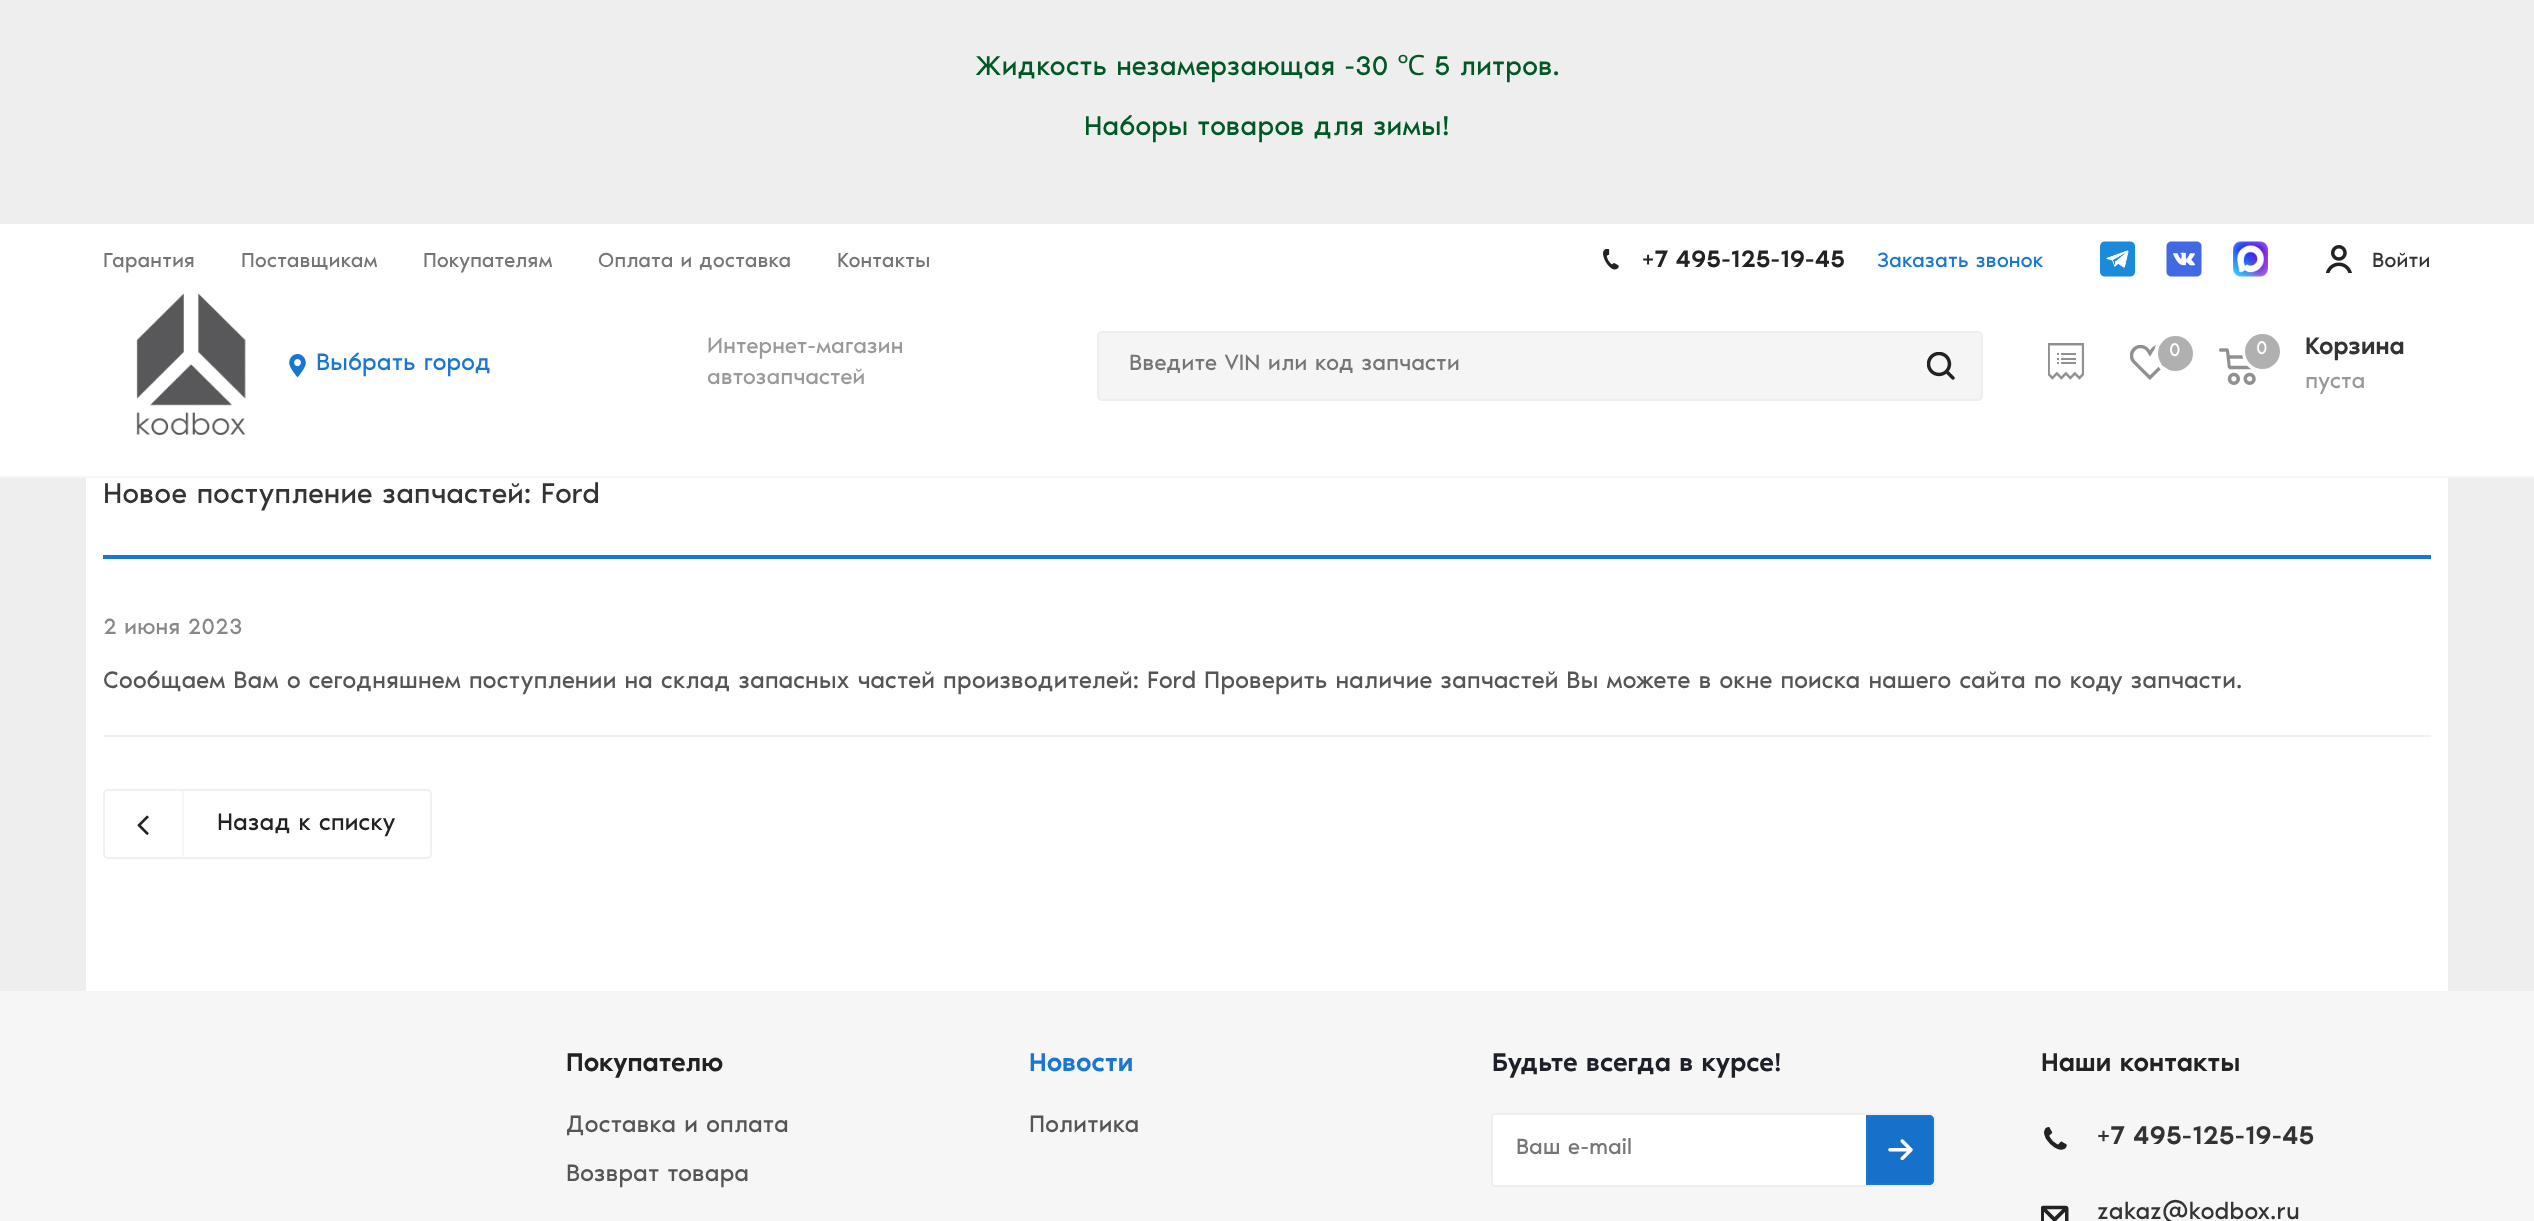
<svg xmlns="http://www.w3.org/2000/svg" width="2534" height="1221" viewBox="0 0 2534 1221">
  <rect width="100%" height="100%" fill="#eee"/>
  <path d="M0 224h2534v252H0z" fill="#fff"/>
  <path d="M0 476h2534v2H0z" fill="#f6f6f6"/>
  <image x="1603" y="249" width="16" height="21" href="img/1.png"/>
  <image x="2100" y="241" width="35" height="36" href="img/2.png"/>
  <image x="2166" y="241" width="36" height="36" href="img/3.png"/>
  <image x="2233" y="241" width="35" height="36" href="img/4.png"/>
  <image x="2325" y="245" width="27" height="28" href="img/5.png"/>
  <image x="121" y="284" width="143" height="159" href="img/6.png"/>
  <image x="289" y="354" width="17" height="24" href="img/7.png"/>
  <rect x="1098" y="332" width="884" height="68" rx="4" fill="#f5f5f5" stroke="#eee" stroke-width="2"/>
  <image x="1927" y="352" width="28" height="28" href="img/8.png"/>
  <image x="2048" y="343" width="36" height="37" href="img/9.png"/>
  <image x="2130" y="345" width="34" height="35" href="img/10.png"/>
  <circle cx="2175" cy="354" r="19" fill="none" stroke="#fff" stroke-width="4"/>
  <circle cx="2175.5" cy="353.5" r="17.5" fill="#b0b0b0"/>
  <image x="2219" y="348" width="37" height="37" href="img/11.png"/>
  <circle cx="2263" cy="352" r="19" fill="none" stroke="#fff" stroke-width="4"/>
  <circle cx="2262.5" cy="351.5" r="17.5" fill="#b0b0b0"/>
  <path d="M86 478h2362v513H86z" fill="#fff"/>
  <path d="M103 555h2328v4H103z" fill="#1976d2"/>
  <path d="M103 735h2328v2H103z" fill="#f0f0f0"/>
  <rect x="104" y="790" width="327" height="68" rx="4" fill="none" stroke="#f0f0f0" stroke-width="2"/>
  <image x="137" y="815" width="12" height="20" href="img/12.png"/>
  <path d="M182 791h2v67H182z" fill="#f5f5f5"/>
  <path d="M0 991h2534v230H0z" fill="#f6f6f7"/>
  <rect x="1492" y="1114" width="443" height="72" rx="3" fill="#fff" stroke="#eee" stroke-width="2"/>
  <path d="M1867 1116H1930C1931.5 1116 1933 1117.5 1933 1119V1181C1933 1182.5 1931.5 1184 1930 1184H1867Z" fill="#1771ca" stroke="#1976d2" stroke-width="2"/>
  <image x="1888" y="1139" width="25" height="21" href="img/13.png"/>
  <image x="2044" y="1127" width="23" height="23" href="img/14.png"/>
  <image x="2041" y="1205" width="28" height="16" href="img/15.png"/>
  <text x="975" y="75" font-family="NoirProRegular" font-size="28" fill="#005824">Жидкость незамерзающая -30</text>
  <text x="1397" y="75" font-family="Noto Sans" font-size="28" fill="#005824">℃</text>
  <g font-family="NoirProRegular" font-size="28" fill="#005824">
    <text x="1434" y="75">5 литров.</text>
    <text x="1084" y="135">Наборы товаров для зимы!</text>
  </g>
  <g font-family="NoirProRegular" font-size="21" fill="#757575">
    <text x="103" y="267">Гарантия</text>
    <text x="241" y="267">Поставщикам</text>
    <text x="423" y="267">Покупателям</text>
    <text x="598" y="267">Оплата и доставка</text>
    <text x="837" y="267">Контакты</text>
  </g>
  <text x="1642" y="267" font-family="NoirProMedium" font-size="24.5" font-weight="500" fill="#222">+7 495-125-19-45</text>
  <text x="1877" y="267" font-family="NoirProRegular" font-size="21.25" fill="#1976d2">Заказать звонок</text>
  <text x="2372" y="267" font-family="NoirProRegular" font-size="21.25" fill="#333">Войти</text>
  <text x="316" y="370" font-family="NoirProRegular" font-size="24.5" fill="#1976d2">Выбрать город</text>
  <g font-family="NoirProRegular" font-size="22.75" fill="#999">
    <text x="707" y="353">Интернет-магазин</text>
    <text x="707" y="384">автозапчастей</text>
  </g>
  <text x="1129" y="370" font-family="NoirProRegular" font-size="22.9" fill="#757575">Введите VIN или код запчасти</text>
  <g font-family="NoirProRegular" font-size="19" fill="#fff">
    <text x="2169" y="356">0</text>
    <text x="2256" y="354">0</text>
  </g>
  <text x="2305" y="354" font-family="NoirProMedium" font-size="24.5" font-weight="500" fill="#333">Корзина</text>
  <text x="2305" y="388" font-family="NoirProRegular" font-size="23" fill="#999">пуста</text>
  <text x="103" y="503" font-family="NoirProRegular" font-size="29.4" fill="#333">Новое поступление запчастей: Ford</text>
  <text x="103" y="634" font-family="NoirProRegular" font-size="22.75" fill="#888">2 июня 2023</text>
  <text x="103" y="688" font-family="NoirProRegular" font-size="24.5" fill="#555">Сообщаем Вам о сегодняшнем поступлении на склад запасных частей производителей: Ford Проверить наличие запчастей Вы можете в окне поиска нашего сайта по коду запчасти.</text>
  <text x="217" y="830" font-family="NoirProRegular" font-size="24.5" fill="#222">Назад к списку</text>
  <text x="566" y="1071" font-family="NoirProMedium" font-size="26.25" font-weight="500" fill="#222">Покупателю</text>
  <g font-family="NoirProRegular" font-size="24.5" fill="#555">
    <text x="566" y="1132">Доставка и оплата</text>
    <text x="566" y="1181">Возврат товара</text>
  </g>
  <text x="1029" y="1071" font-family="NoirProMedium" font-size="26.25" font-weight="500" fill="#1976d2">Новости</text>
  <text x="1029" y="1132" font-family="NoirProRegular" font-size="24.5" fill="#555">Политика</text>
  <text x="1492" y="1071" font-family="NoirProMedium" font-size="26.25" font-weight="500" fill="#1d2029">Будьте всегда в курсе!</text>
  <text x="1516" y="1154" font-family="NoirProRegular" font-size="22.75" fill="#757575">Ваш e-mail</text>
  <text x="2041" y="1071" font-family="NoirProMedium" font-size="26.25" font-weight="500" fill="#222">Наши контакты</text>
  <text x="2097" y="1144" font-family="NoirProMedium" font-size="26.25" font-weight="500" fill="#333">+7 495-125-19-45</text>
  <text x="2097" y="1219" font-family="NoirProRegular" font-size="24.5" fill="#333">zakaz@kodbox.ru</text>
</svg>
